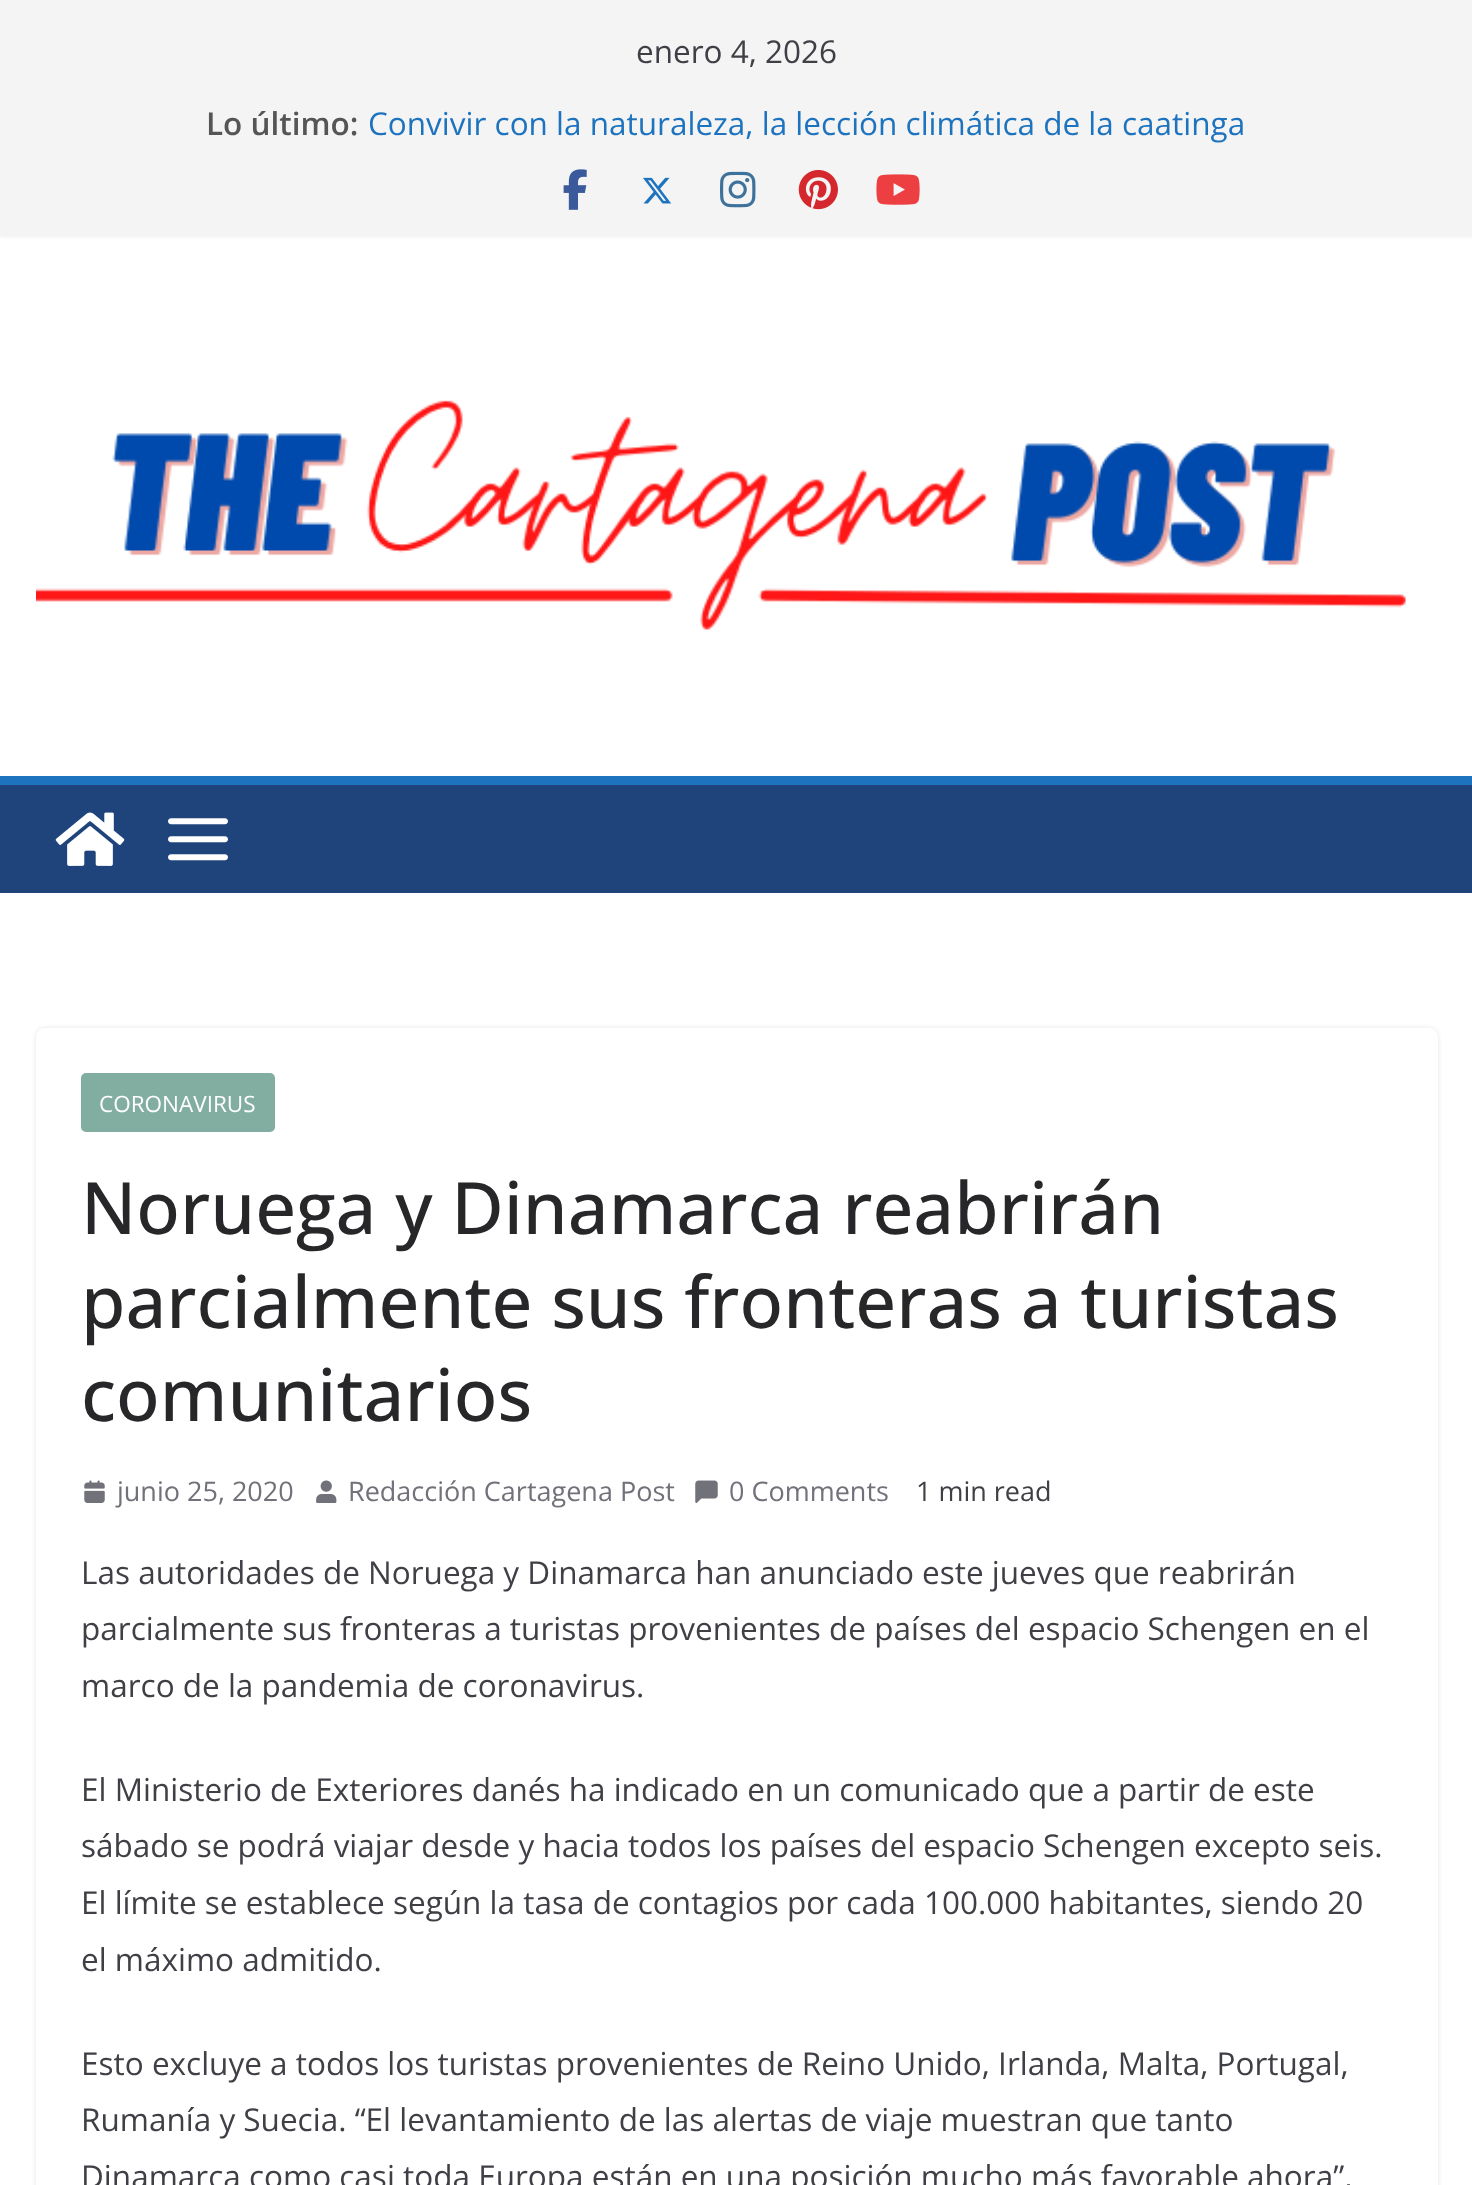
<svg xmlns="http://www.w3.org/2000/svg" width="1472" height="2185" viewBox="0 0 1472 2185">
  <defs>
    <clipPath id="clip1"><path d="M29 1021H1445V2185H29ZM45 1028H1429C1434 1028 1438 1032 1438 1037V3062C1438 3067 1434 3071 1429 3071H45C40 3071 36 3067 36 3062V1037C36 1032 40 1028 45 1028Z" clip-rule="evenodd"/></clipPath>
  </defs>
  <rect width="100%" height="100%" fill="#fff"/>
  <path d="M0 0h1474v236H0z" fill="#0000001a" filter="blur(2px)"/>
  <path d="M0 0h1472v236H0z" fill="#f4f4f5"/>
  <image x="563" y="169" width="24" height="41" href="img/1.png"/>
  <image x="643" y="177" width="29" height="27" href="img/2.png"/>
  <image x="720" y="171" width="36" height="37" href="img/3.png"/>
  <image x="798" y="169" width="40" height="41" href="img/4.png"/>
  <image x="876" y="174" width="44" height="31" href="img/5.png"/>
  <image x="36" y="400" width="1370" height="230" href="img/6.png"/>
  <path d="M0 785h1472v108H0z" fill="#1f447c"/>
  <path d="M0 776h1472v9H0z" fill="#1e73be"/>
  <image x="55" y="812" width="70" height="54" href="img/7.png"/>
  <image x="168" y="818" width="60" height="43" href="img/8.png"/>
  <g clip-path="url(#clip1)">
    <rect x="36" y="1028" width="1402" height="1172" rx="9" fill="#e4e4e7" filter="blur(2px)"/>
  </g>
  <rect x="81" y="1073" width="194" height="59" rx="5" fill="#82ada1"/>
  <image x="84" y="1480" width="21" height="23" href="img/9.png"/>
  <image x="316" y="1480" width="21" height="23" href="img/10.png"/>
  <image x="695" y="1480" width="23" height="23" href="img/11.png"/>
  <text x="636" y="63" font-family="Open Sans" font-size="31.5" fill="#3f3f46">enero 4, 2026</text>
  <text x="206" y="135" font-family="Open Sans" font-size="31.5" font-weight="600" fill="#555">Lo último:</text>
  <text x="368" y="135" font-family="Open Sans" font-size="31.5" fill="#1e73be">Convivir con la naturaleza, la lección climática de la caatinga</text>
  <text x="99" y="1112" font-family="Open Sans" font-size="22.5" fill="#fff">CORONAVIRUS</text>
  <g font-family="Open Sans" font-size="72" font-weight="500" fill="#27272a">
    <text x="81" y="1234">Noruega y Dinamarca reabrirán</text>
    <text x="81" y="1328">parcialmente sus fronteras a turistas</text>
    <text x="81" y="1421">comunitarios</text>
  </g>
  <g font-family="Open Sans" font-size="27" fill="#71717a">
    <text x="117" y="1501">junio 25, 2020</text>
    <text x="348" y="1501">Redacción Cartagena Post</text>
    <text x="729" y="1501">0 Comments</text>
  </g>
  <text x="916" y="1501" font-family="Open Sans" font-size="27" fill="#3f3f46">1 min read</text>
  <g font-family="Open Sans" font-size="31.5" fill="#3f3f46">
    <text x="81" y="1584">Las autoridades de Noruega y Dinamarca han anunciado este jueves que reabrirán</text>
    <text x="81" y="1640">parcialmente sus fronteras a turistas provenientes de países del espacio Schengen en el</text>
    <text x="81" y="1697">marco de la pandemia de coronavirus.</text>
    <text x="81" y="1801">El Ministerio de Exteriores danés ha indicado en un comunicado que a partir de este</text>
    <text x="81" y="1857">sábado se podrá viajar desde y hacia todos los países del espacio Schengen excepto seis.</text>
    <text x="81" y="1914">El límite se establece según la tasa de contagios por cada 100.000 habitantes, siendo 20</text>
    <text x="81" y="1971">el máximo admitido.</text>
    <text x="81" y="2075">Esto excluye a todos los turistas provenientes de Reino Unido, Irlanda, Malta, Portugal,</text>
    <text x="81" y="2131">Rumanía y Suecia. “El levantamiento de las alertas de viaje muestran que tanto</text>
    <text x="81" y="2188">Dinamarca como casi toda Europa están en una posición mucho más favorable ahora”,</text>
  </g>
</svg>
